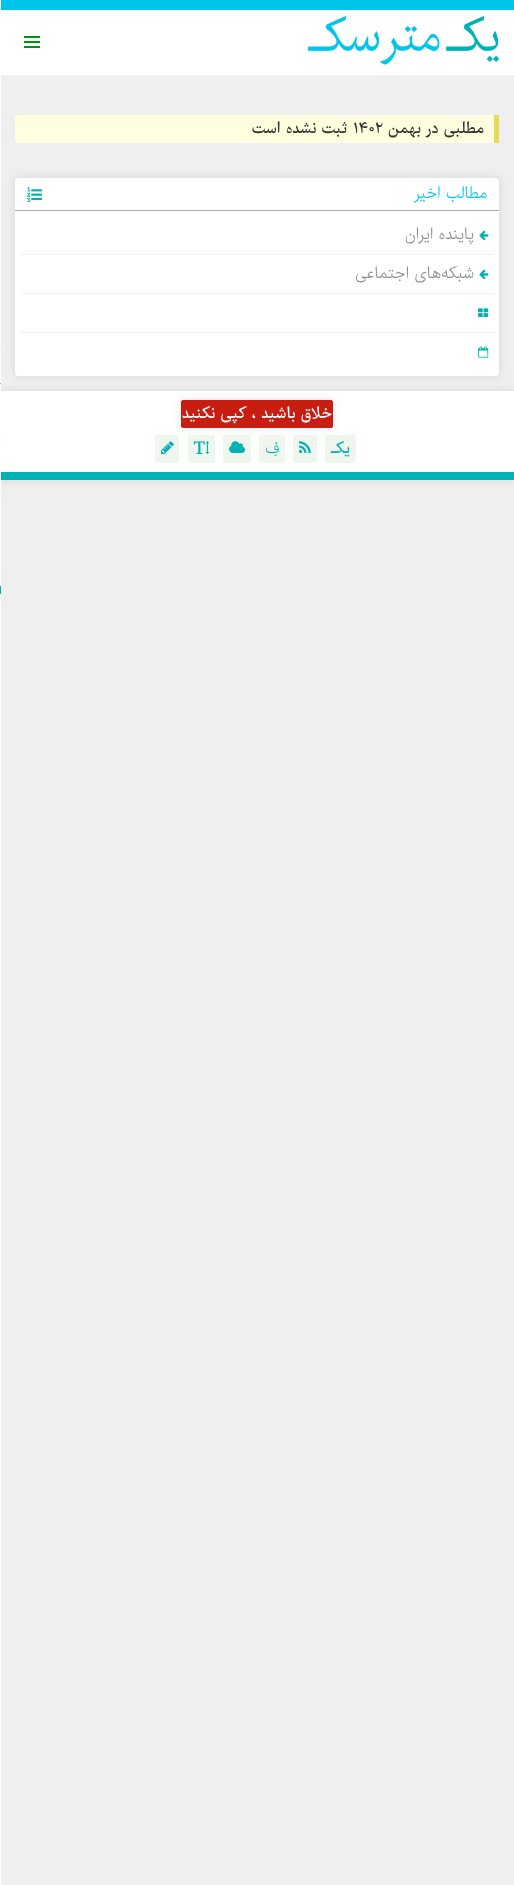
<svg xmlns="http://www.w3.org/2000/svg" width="514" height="1885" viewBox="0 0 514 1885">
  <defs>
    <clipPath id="clip1"><path d="M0 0h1v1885H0z"/></clipPath>
  </defs>
  <rect width="100%" height="100%" fill="#efefef"/>
  <path d="M0 391h514v89H0z" fill="#0000001a" filter="blur(5px)"/>
  <path d="M1 391h513v81H1z" fill="#fff"/>
  <rect x="15" y="178" width="484" height="198" rx="4" fill="#0000001a" filter="blur(5px)"/>
  <path d="M0 472h514v8H0z" fill="#00b2b3"/>
  <path d="M0 0h1v1885H0z" fill="#fff"/>
  <rect x="15" y="178" width="484" height="198" rx="4" fill="#fff"/>
  <g clip-path="url(#clip1)">
    <rect x="-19" y="351" width="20" height="33" rx="4" fill="#0000001a" filter="blur(5px)"/>
  </g>
  <path d="M0 351H-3C-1 351 1 353 1 355V384H-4V355C-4 353-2 351 0 351Z" fill="#fff"/>
  <path d="M0 383h1v1H0z" fill="#a7a9ac"/>
  <path d="M-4 384H1V421C1 423-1 425-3 425H0C-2 425-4 423-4 421Z" fill="#fff"/>
  <g clip-path="url(#clip1)">
    <rect x="-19" y="440" width="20" height="50" rx="4" fill="#0000001a" filter="blur(5px)"/>
  </g>
  <rect x="-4" y="440" width="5" height="50" rx="4" fill="#fff"/>
  <g clip-path="url(#clip1)">
    <path d="M-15 505h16v89H-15z" fill="#0000001a" filter="blur(5px)"/>
  </g>
  <path d="M0 505h1v89H0z" fill="#fff"/>
  <path d="M0 586h1v8H0z" fill="#00b2b3"/>
  <path d="M1 0h513v10H1z" fill="#00c5ea"/>
  <path d="M1 10h513v65H1z" fill="#fff"/>
  <image x="308" y="16" width="192" height="49" href="img/1.png"/>
  <image x="24" y="36" width="16" height="12" href="img/2.png"/>
  <path d="M18 115H499V143H18C16.5 143 15 141.5 15 140V118C15 116.5 16.5 115 18 115Z" fill="#ffffe0"/>
  <path d="M494 115h5v28H494z" fill="#e6db55"/>
  <path d="M19 178H495C497 178 499 180 499 182V211H15V182C15 180 17 178 19 178Z" fill="#fff"/>
  <path d="M15 210h484v1H15z" fill="#a7a9ac"/>
  <image x="27" y="187" width="15" height="16" href="img/3.png"/>
  <path d="M20 254h474v1H20z" fill="#f1f1f1"/>
  <image x="479" y="230" width="10" height="11" href="img/4.png"/>
  <path d="M20 293h474v1H20z" fill="#f1f1f1"/>
  <image x="479" y="269" width="10" height="11" href="img/4.png"/>
  <path d="M20 332h474v1H20z" fill="#f1f1f1"/>
  <image x="478" y="308" width="11" height="9" href="img/5.png"/>
  <image x="478" y="346" width="11" height="12" href="img/6.png"/>
  <rect x="181" y="400" width="152" height="28" rx="2" fill="#0000001a" filter="blur(5px)"/>
  <rect x="181.5" y="400.5" width="151" height="27" rx="1.5" fill="#c81d11" stroke="#c81d11"/>
  <rect x="325.5" y="435.5" width="30" height="27" rx="1.5" fill="#eef6ee" stroke="#eef6ee"/>
  <rect x="293.5" y="435.5" width="23" height="27" rx="1.5" fill="#eef6ee" stroke="#eef6ee"/>
  <image x="299" y="441" width="12" height="12" href="img/7.png"/>
  <rect x="259.5" y="435.5" width="25" height="27" rx="1.5" fill="#eef6ee" stroke="#eef6ee"/>
  <image x="266" y="442" width="13" height="15" href="img/8.png"/>
  <rect x="223.5" y="435.5" width="27" height="27" rx="1.5" fill="#eef6ee" stroke="#eef6ee"/>
  <image x="229" y="441" width="17" height="12" href="img/9.png"/>
  <rect x="188.5" y="435.5" width="26" height="27" rx="1.5" fill="#eef6ee" stroke="#eef6ee"/>
  <image x="194" y="441" width="15" height="14" href="img/10.png"/>
  <rect x="155.5" y="435.5" width="23" height="27" rx="1.5" fill="#eef6ee" stroke="#eef6ee"/>
  <image x="161" y="441" width="13" height="14" href="img/11.png"/>
  <text x="484" y="133" font-family="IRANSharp" font-size="15" font-weight="bold" direction="rtl" fill="#333">مطلبی در بهمن</text>
  <text x="353" y="133" font-family="IRANSharp" font-size="15" font-weight="bold" fill="#333">۱۴۰۲</text>
  <text x="347" y="133" font-family="IRANSharp" font-size="15" font-weight="bold" direction="rtl" fill="#333">ثبت نشده است</text>
  <text x="487" y="198" font-family="IRANSharp" font-size="15" font-weight="300" direction="rtl" fill="#00c5ea">مطالب اخیر</text>
  <g font-family="IRANSharp" font-size="15" font-weight="300" direction="rtl" fill="#8a8c8e">
    <text x="474" y="239">پاینده ایران</text>
    <text x="474" y="278">شبکه‌های اجتماعی</text>
  </g>
  <text x="332" y="418" font-family="IRANSharp" font-size="15" font-weight="bold" direction="rtl" fill="#fff">خلاق باشید ، کپی نکنید</text>
  <text x="350" y="453" font-family="IRANSharp" font-size="15" font-weight="bold" direction="rtl" fill="#00b2b3">یکـ</text>
</svg>
